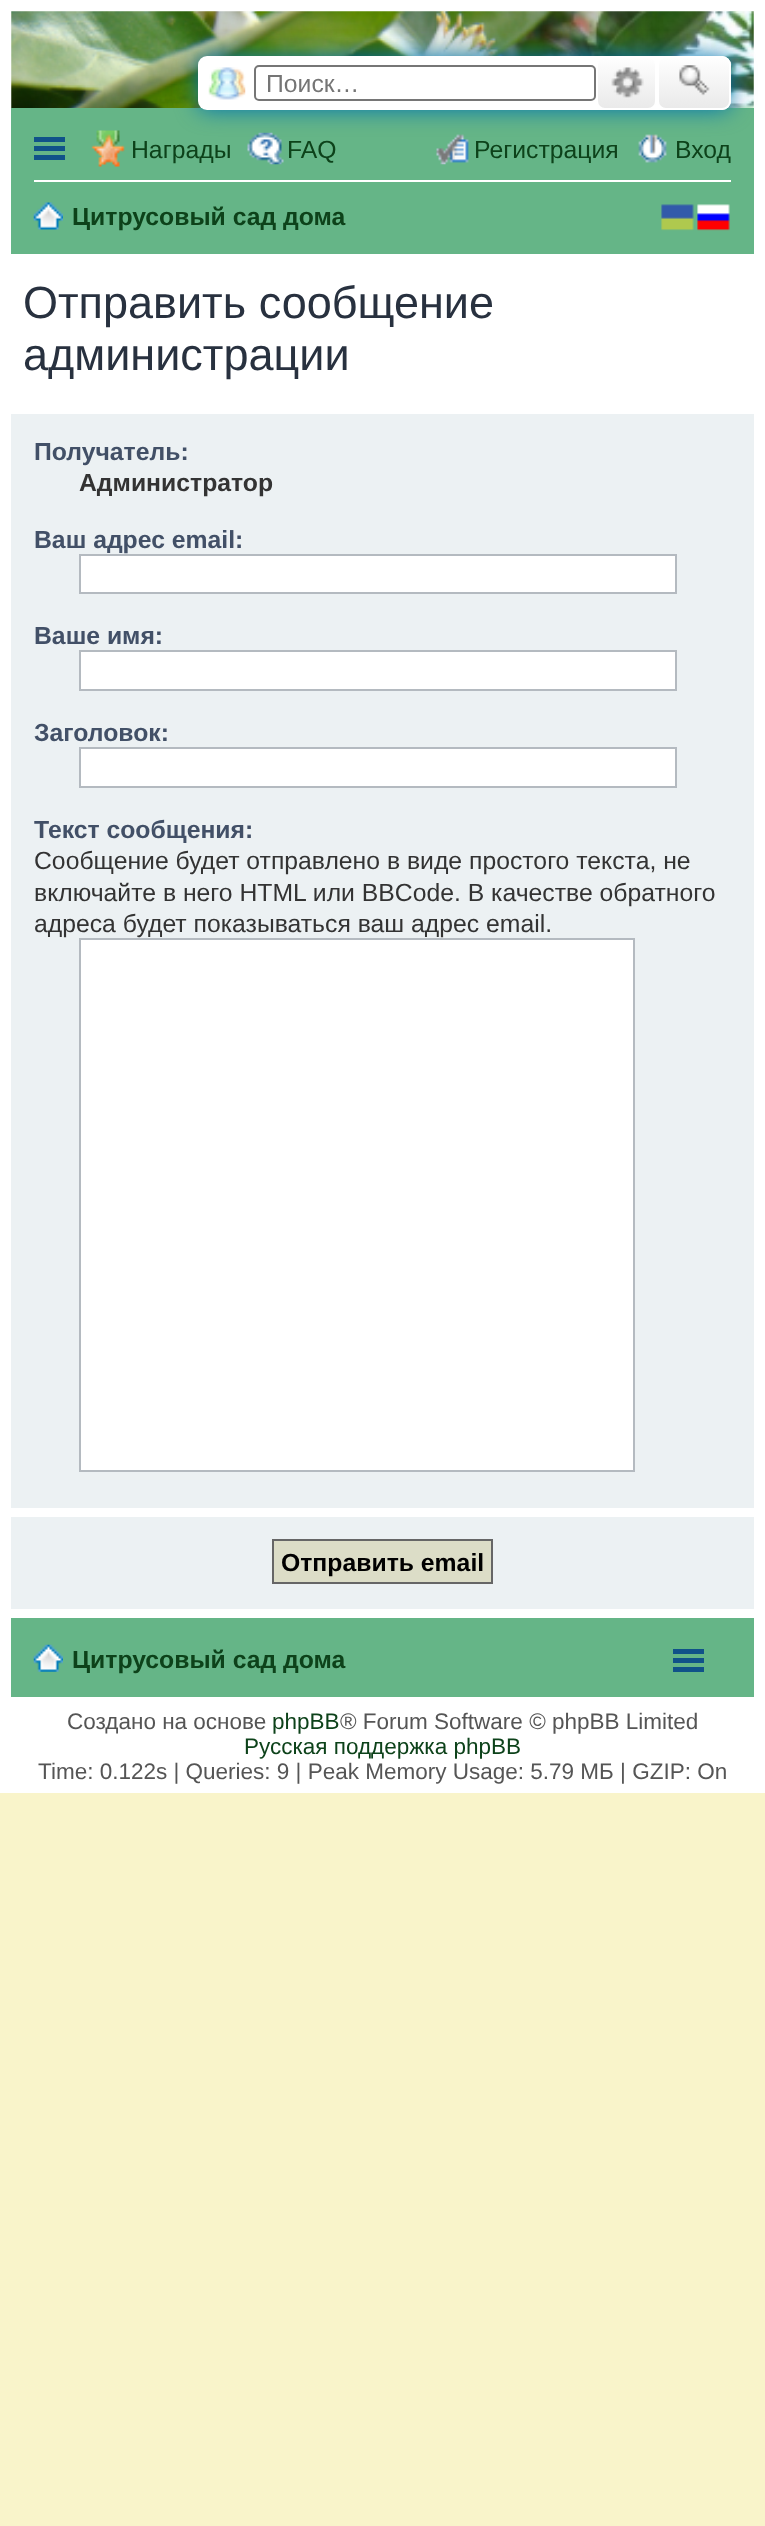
<svg xmlns="http://www.w3.org/2000/svg" width="765" height="2526" viewBox="0 0 765 2526">
  <defs>
    <linearGradient id="g1" gradientUnits="userSpaceOnUse" x1="627" y1="56" x2="627" y2="110"><stop offset="0" stop-color="#fff"/><stop offset="1" stop-color="#e9e9e9"/></linearGradient>
    <linearGradient id="g2" gradientUnits="userSpaceOnUse" x1="694" y1="56" x2="694" y2="110"><stop offset="0" stop-color="#fff"/><stop offset="1" stop-color="#e9e9e9"/></linearGradient>
  </defs>
  <rect width="100%" height="100%" fill="#f9f4ca"/>
  <path d="M0 0h765v1793H0z" fill="#fff"/>
  <image x="11" y="11" width="743" height="97" href="img/1.png"/>
  <path d="M11 108h743v146H11z" fill="#65b587"/>
  <rect x="198" y="56" width="533" height="54" rx="9" fill="#0075b0" filter="blur(11px)"/>
  <rect x="198" y="56" width="533" height="54" rx="9" fill="#fff"/>
  <image x="208" y="67" width="38" height="33" href="img/2.png"/>
  <rect x="255" y="66" width="340" height="34" rx="4" fill="none" stroke="#767676" stroke-width="2"/>
  <rect x="597" y="57" width="59" height="52" rx="8" fill="url(#g1)" stroke="#fff" stroke-width="2"/>
  <image x="611" y="67" width="33" height="31" href="img/3.png"/>
  <rect x="658" y="57" width="72" height="52" rx="8" fill="url(#g2)" stroke="#fff" stroke-width="2"/>
  <image x="679" y="65" width="31" height="31" href="img/4.png"/>
  <path d="M34 137h31v5H34z" fill="#105289"/>
  <path d="M34 146h31v5H34z" fill="#105289"/>
  <path d="M34 155h31v5H34z" fill="#105289"/>
  <image x="91" y="130" width="34" height="37" href="img/5.png"/>
  <image x="247" y="132" width="37" height="33" href="img/6.png"/>
  <image x="436" y="134" width="33" height="31" href="img/7.png"/>
  <image x="638" y="134" width="29" height="29" href="img/8.png"/>
  <path d="M34 180h697v2H34z" fill="#fff"/>
  <image x="33" y="202" width="30" height="28" href="img/9.png"/>
  <image x="661" y="204" width="33" height="27" href="img/10.png"/>
  <image x="697" y="204" width="33" height="27" href="img/11.png"/>
  <path d="M11 414h743v1094H11z" fill="#ecf1f3"/>
  <path d="M80 555h596v38H80z" fill="#fff" stroke="#b4bac0" stroke-width="2"/>
  <path d="M80 651h596v39H80z" fill="#fff" stroke="#b4bac0" stroke-width="2"/>
  <path d="M80 748h596v39H80z" fill="#fff" stroke="#b4bac0" stroke-width="2"/>
  <path d="M80 939h554v532H80z" fill="#fff" stroke="#b4bac0" stroke-width="2"/>
  <path d="M11 1517h743v92H11z" fill="#ecf1f3"/>
  <path d="M273 1540h219v43H273z" fill="#dcddc7" stroke="#666" stroke-width="2"/>
  <path d="M11 1618h743v79H11z" fill="#65b587"/>
  <image x="33" y="1644" width="30" height="28" href="img/12.png"/>
  <path d="M673 1649h31v5H673z" fill="#105289"/>
  <path d="M673 1658h31v5H673z" fill="#105289"/>
  <path d="M673 1667h31v5H673z" fill="#105289"/>
  <text x="266" y="92" font-family="Liberation Sans" font-size="24.75" fill="#757575">Поиск…</text>
  <g font-family="Liberation Sans" font-size="24.75" fill="#0d421a">
    <text x="131" y="158">Награды</text>
    <text x="287" y="158">FAQ</text>
    <text x="474" y="158">Регистрация</text>
    <text x="675" y="158">Вход</text>
  </g>
  <text x="72" y="225" font-family="Liberation Sans" font-size="24.75" font-weight="bold" fill="#0d421a">Цитрусовый сад дома</text>
  <g font-family="Liberation Sans" font-size="45" fill="#28313f">
    <text x="23" y="318">Отправить сообщение</text>
    <text x="23" y="370">администрации</text>
  </g>
  <text x="34" y="460" font-family="Liberation Sans" font-size="24.75" font-weight="bold" fill="#425067">Получатель:</text>
  <text x="79" y="491" font-family="Liberation Sans" font-size="24.75" font-weight="bold" fill="#333">Администратор</text>
  <g font-family="Liberation Sans" font-size="24.75" font-weight="bold" fill="#425067">
    <text x="34" y="548">Ваш адрес email:</text>
    <text x="34" y="644">Ваше имя:</text>
    <text x="34" y="741">Заголовок:</text>
    <text x="34" y="838">Текст сообщения:</text>
  </g>
  <g font-family="Liberation Sans" font-size="24.75" fill="#333">
    <text x="34" y="869">Сообщение будет отправлено в виде простого текста, не</text>
    <text x="34" y="901">включайте в него HTML или BBCode. В качестве обратного</text>
    <text x="34" y="932">адреса будет показываться ваш адрес email.</text>
  </g>
  <text x="281" y="1571" font-family="Liberation Sans" font-size="24.75" font-weight="bold" fill="#000">Отправить email</text>
  <text x="72" y="1668" font-family="Liberation Sans" font-size="24.75" font-weight="bold" fill="#0d421a">Цитрусовый сад дома</text>
  <text x="67" y="1729" font-family="Liberation Sans" font-size="22.5" fill="#555">Создано на основе</text>
  <text x="272" y="1729" font-family="Liberation Sans" font-size="22.5" fill="#0d421a">phpBB</text>
  <text x="340" y="1729" font-family="Liberation Sans" font-size="22.5" fill="#555">® Forum Software © phpBB Limited</text>
  <text x="244" y="1754" font-family="Liberation Sans" font-size="22.5" fill="#0d421a">Русская поддержка phpBB</text>
  <text x="38" y="1779" font-family="Liberation Sans" font-size="22.5" fill="#555">Time: 0.122s | Queries: 9 | Peak Memory Usage: 5.79 МБ | GZIP: On</text>
</svg>
